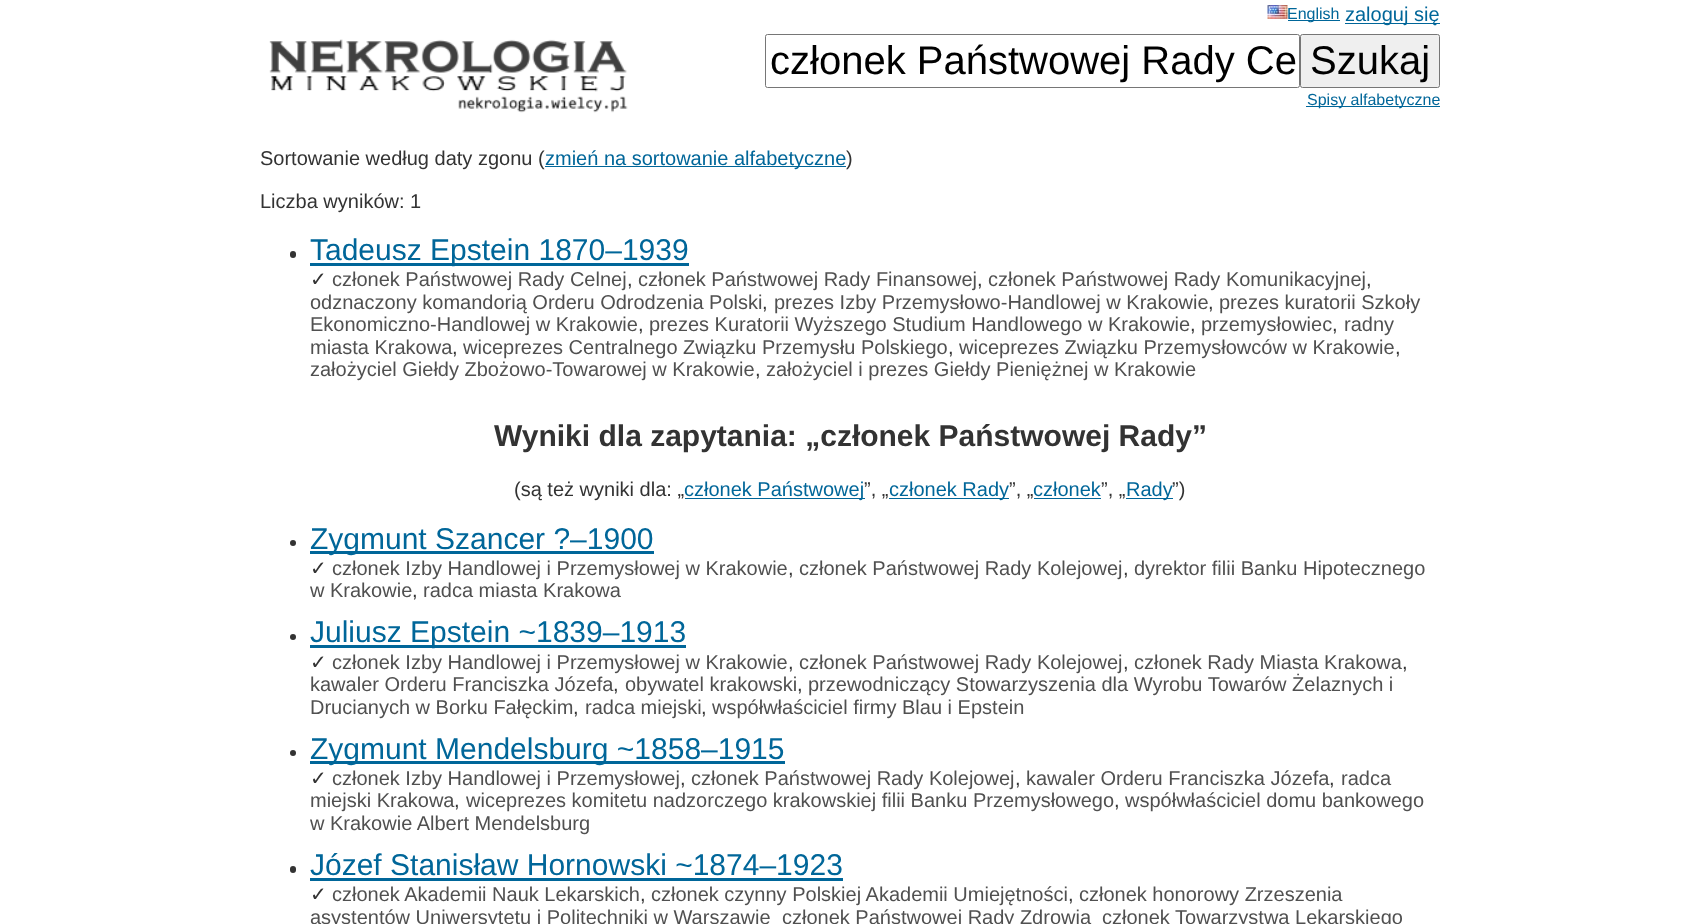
<svg xmlns="http://www.w3.org/2000/svg" width="1699" height="924" viewBox="0 0 1699 924">
  <rect width="100%" height="100%" fill="#fff"/>
  <image x="1267" y="5" width="21" height="14" href="img/1.png"/>
  <path d="M1288 20h52v1H1288z" fill="#069"/>
  <path d="M1345 23h95v1H1345z" fill="#069"/>
  <image x="269" y="39" width="359" height="74" href="img/2.png"/>
  <rect x="765.5" y="34.5" width="534" height="53" rx="2" fill="none" stroke="#767676"/>
  <rect x="1300.5" y="34.5" width="139" height="53" rx="2" fill="#efefef" stroke="#767676"/>
  <path d="M1306 106h134v1H1306z" fill="#069"/>
  <path d="M545 166h301v1H545z" fill="#069"/>
  <rect x="290" y="251" width="6" height="7" rx="3" fill="#333"/>
  <path d="M310 263h379v3H310z" fill="#069"/>
  <path d="M685 498h180v1H685z" fill="#069"/>
  <path d="M889 498h120v1H889z" fill="#069"/>
  <path d="M1034 498h67v1H1034z" fill="#069"/>
  <path d="M1126 498h47v1H1126z" fill="#069"/>
  <circle cx="293" cy="543" r="3" fill="#333"/>
  <path d="M310 551h344v3H310z" fill="#069"/>
  <circle cx="293" cy="637" r="3" fill="#333"/>
  <path d="M310 645h376v3H310z" fill="#069"/>
  <circle cx="293" cy="753" r="3" fill="#333"/>
  <path d="M310 761h475v3H310z" fill="#069"/>
  <rect x="290" y="866" width="6" height="7" rx="3" fill="#333"/>
  <path d="M310 878h533v3H310z" fill="#069"/>
  <text x="1287" y="19" font-family="Liberation Sans" font-size="16" fill="#069">English</text>
  <text x="1345" y="21" font-family="Liberation Sans" font-size="20" fill="#069">zaloguj się</text>
  <g font-family="Liberation Sans" font-size="40" fill="#000">
    <text x="770" y="74">członek Państwowej Rady Ce</text>
    <text x="1310" y="74">Szukaj</text>
  </g>
  <text x="1307" y="105" font-family="Liberation Sans" font-size="16" fill="#069">Spisy alfabetyczne</text>
  <text x="260" y="165" font-family="Liberation Sans" font-size="20" fill="#333">Sortowanie według daty zgonu (</text>
  <text x="545" y="165" font-family="Liberation Sans" font-size="20" fill="#069">zmień na sortowanie alfabetyczne</text>
  <g font-family="Liberation Sans" font-size="20" fill="#333">
    <text x="846" y="165">)</text>
    <text x="260" y="208">Liczba wyników: 1</text>
  </g>
  <text x="310" y="260" font-family="Liberation Sans" font-size="30" fill="#069">Tadeusz Epstein 1870–1939</text>
  <text x="310" y="286" font-family="DejaVu Sans" font-size="20" fill="#333">✓</text>
  <g font-family="Liberation Sans" font-size="20" fill="#505050">
    <text x="332" y="286">członek Państwowej Rady Celnej</text>
    <text x="638" y="286">członek Państwowej Rady Finansowej</text>
    <text x="988" y="286">członek Państwowej Rady Komunikacyjnej</text>
  </g>
  <g font-family="Liberation Sans" font-size="20" fill="#333">
    <text x="627" y="286">,</text>
    <text x="977" y="286">,</text>
    <text x="1366" y="286">,</text>
  </g>
  <text x="310" y="309" font-family="Liberation Sans" font-size="20" fill="#505050">odznaczony komandorią Orderu Odrodzenia Polski</text>
  <text x="762" y="309" font-family="Liberation Sans" font-size="20" fill="#333">,</text>
  <text x="774" y="309" font-family="Liberation Sans" font-size="20" fill="#505050">prezes Izby Przemysłowo-Handlowej w Krakowie</text>
  <text x="1208" y="309" font-family="Liberation Sans" font-size="20" fill="#333">,</text>
  <g font-family="Liberation Sans" font-size="20" fill="#505050">
    <text x="1219" y="309">prezes kuratorii Szkoły</text>
    <text x="310" y="331">Ekonomiczno-Handlowej w Krakowie</text>
  </g>
  <text x="638" y="331" font-family="Liberation Sans" font-size="20" fill="#333">,</text>
  <text x="649" y="331" font-family="Liberation Sans" font-size="20" fill="#505050">prezes Kuratorii Wyższego Studium Handlowego w Krakowie</text>
  <text x="1190" y="331" font-family="Liberation Sans" font-size="20" fill="#333">,</text>
  <text x="1201" y="331" font-family="Liberation Sans" font-size="20" fill="#505050">przemysłowiec</text>
  <text x="1332" y="331" font-family="Liberation Sans" font-size="20" fill="#333">,</text>
  <g font-family="Liberation Sans" font-size="20" fill="#505050">
    <text x="1344" y="331">radny</text>
    <text x="310" y="354">miasta Krakowa</text>
  </g>
  <text x="452" y="354" font-family="Liberation Sans" font-size="20" fill="#333">,</text>
  <text x="463" y="354" font-family="Liberation Sans" font-size="20" fill="#505050">wiceprezes Centralnego Związku Przemysłu Polskiego</text>
  <text x="948" y="354" font-family="Liberation Sans" font-size="20" fill="#333">,</text>
  <text x="959" y="354" font-family="Liberation Sans" font-size="20" fill="#505050">wiceprezes Związku Przemysłowców w Krakowie</text>
  <text x="1395" y="354" font-family="Liberation Sans" font-size="20" fill="#333">,</text>
  <text x="310" y="376" font-family="Liberation Sans" font-size="20" fill="#505050">założyciel Giełdy Zbożowo-Towarowej w Krakowie</text>
  <text x="755" y="376" font-family="Liberation Sans" font-size="20" fill="#333">,</text>
  <text x="766" y="376" font-family="Liberation Sans" font-size="20" fill="#505050">założyciel i prezes Giełdy Pieniężnej w Krakowie</text>
  <text x="494" y="446" font-family="Liberation Sans" font-size="30" font-weight="bold" fill="#333">Wyniki dla zapytania: „członek Państwowej Rady”</text>
  <text x="514" y="496" font-family="Liberation Sans" font-size="20" fill="#333">(są też wyniki dla: „</text>
  <text x="684" y="496" font-family="Liberation Sans" font-size="20" fill="#069">członek Państwowej</text>
  <text x="864" y="496" font-family="Liberation Sans" font-size="20" fill="#333">”, „</text>
  <text x="889" y="496" font-family="Liberation Sans" font-size="20" fill="#069">członek Rady</text>
  <text x="1009" y="496" font-family="Liberation Sans" font-size="20" fill="#333">”, „</text>
  <text x="1033" y="496" font-family="Liberation Sans" font-size="20" fill="#069">członek</text>
  <text x="1101" y="496" font-family="Liberation Sans" font-size="20" fill="#333">”, „</text>
  <text x="1126" y="496" font-family="Liberation Sans" font-size="20" fill="#069">Rady</text>
  <text x="1172" y="496" font-family="Liberation Sans" font-size="20" fill="#333">”)</text>
  <text x="310" y="549" font-family="Liberation Sans" font-size="30" fill="#069">Zygmunt Szancer ?–1900</text>
  <text x="310" y="575" font-family="DejaVu Sans" font-size="20" fill="#333">✓</text>
  <g font-family="Liberation Sans" font-size="20" fill="#505050">
    <text x="332" y="575">członek Izby Handlowej i Przemysłowej w Krakowie</text>
    <text x="799" y="575">członek Państwowej Rady Kolejowej</text>
    <text x="1134" y="575">dyrektor filii Banku Hipotecznego</text>
  </g>
  <g font-family="Liberation Sans" font-size="20" fill="#333">
    <text x="788" y="575">,</text>
    <text x="1123" y="575">,</text>
  </g>
  <text x="310" y="597" font-family="Liberation Sans" font-size="20" fill="#505050">w Krakowie</text>
  <text x="412" y="597" font-family="Liberation Sans" font-size="20" fill="#333">,</text>
  <text x="423" y="597" font-family="Liberation Sans" font-size="20" fill="#505050">radca miasta Krakowa</text>
  <text x="310" y="642" font-family="Liberation Sans" font-size="30" fill="#069">Juliusz Epstein ~1839–1913</text>
  <text x="310" y="669" font-family="DejaVu Sans" font-size="20" fill="#333">✓</text>
  <g font-family="Liberation Sans" font-size="20" fill="#505050">
    <text x="332" y="669">członek Izby Handlowej i Przemysłowej w Krakowie</text>
    <text x="799" y="669">członek Państwowej Rady Kolejowej</text>
    <text x="1134" y="669">członek Rady Miasta Krakowa</text>
  </g>
  <g font-family="Liberation Sans" font-size="20" fill="#333">
    <text x="788" y="669">,</text>
    <text x="1123" y="669">,</text>
    <text x="1402" y="669">,</text>
  </g>
  <text x="310" y="691" font-family="Liberation Sans" font-size="20" fill="#505050">kawaler Orderu Franciszka Józefa</text>
  <text x="613" y="691" font-family="Liberation Sans" font-size="20" fill="#333">,</text>
  <text x="625" y="691" font-family="Liberation Sans" font-size="20" fill="#505050">obywatel krakowski</text>
  <text x="797" y="691" font-family="Liberation Sans" font-size="20" fill="#333">,</text>
  <g font-family="Liberation Sans" font-size="20" fill="#505050">
    <text x="808" y="691">przewodniczący Stowarzyszenia dla Wyrobu Towarów Żelaznych i</text>
    <text x="310" y="714">Drucianych w Borku Fałęckim</text>
  </g>
  <text x="573" y="714" font-family="Liberation Sans" font-size="20" fill="#333">,</text>
  <text x="585" y="714" font-family="Liberation Sans" font-size="20" fill="#505050">radca miejski</text>
  <text x="701" y="714" font-family="Liberation Sans" font-size="20" fill="#333">,</text>
  <text x="712" y="714" font-family="Liberation Sans" font-size="20" fill="#505050">współwłaściciel firmy Blau i Epstein</text>
  <text x="310" y="759" font-family="Liberation Sans" font-size="30" fill="#069">Zygmunt Mendelsburg ~1858–1915</text>
  <text x="310" y="785" font-family="DejaVu Sans" font-size="20" fill="#333">✓</text>
  <g font-family="Liberation Sans" font-size="20" fill="#505050">
    <text x="332" y="785">członek Izby Handlowej i Przemysłowej</text>
    <text x="691" y="785">członek Państwowej Rady Kolejowej</text>
    <text x="1026" y="785">kawaler Orderu Franciszka Józefa</text>
    <text x="1341" y="785">radca</text>
  </g>
  <g font-family="Liberation Sans" font-size="20" fill="#333">
    <text x="680" y="785">,</text>
    <text x="1015" y="785">,</text>
    <text x="1329" y="785">,</text>
  </g>
  <text x="310" y="807" font-family="Liberation Sans" font-size="20" fill="#505050">miejski Krakowa</text>
  <text x="454" y="807" font-family="Liberation Sans" font-size="20" fill="#333">,</text>
  <text x="466" y="807" font-family="Liberation Sans" font-size="20" fill="#505050">wiceprezes komitetu nadzorczego krakowskiej filii Banku Przemysłowego</text>
  <text x="1114" y="807" font-family="Liberation Sans" font-size="20" fill="#333">,</text>
  <g font-family="Liberation Sans" font-size="20" fill="#505050">
    <text x="1125" y="807">współwłaściciel domu bankowego</text>
    <text x="310" y="830">w Krakowie Albert Mendelsburg</text>
  </g>
  <text x="310" y="875" font-family="Liberation Sans" font-size="30" fill="#069">Józef Stanisław Hornowski ~1874–1923</text>
  <text x="310" y="901" font-family="DejaVu Sans" font-size="20" fill="#333">✓</text>
  <g font-family="Liberation Sans" font-size="20" fill="#505050">
    <text x="332" y="901">członek Akademii Nauk Lekarskich</text>
    <text x="651" y="901">członek czynny Polskiej Akademii Umiejętności</text>
    <text x="1079" y="901">członek honorowy Zrzeszenia</text>
  </g>
  <g font-family="Liberation Sans" font-size="20" fill="#333">
    <text x="640" y="901">,</text>
    <text x="1068" y="901">,</text>
  </g>
  <g font-family="Liberation Sans" font-size="20" fill="#505050">
    <text x="310" y="924">asystentów Uniwersytetu i Politechniki w Warszawie</text>
    <text x="782" y="924">członek Państwowej Rady Zdrowia</text>
    <text x="1102" y="924">członek Towarzystwa Lekarskiego</text>
  </g>
</svg>
